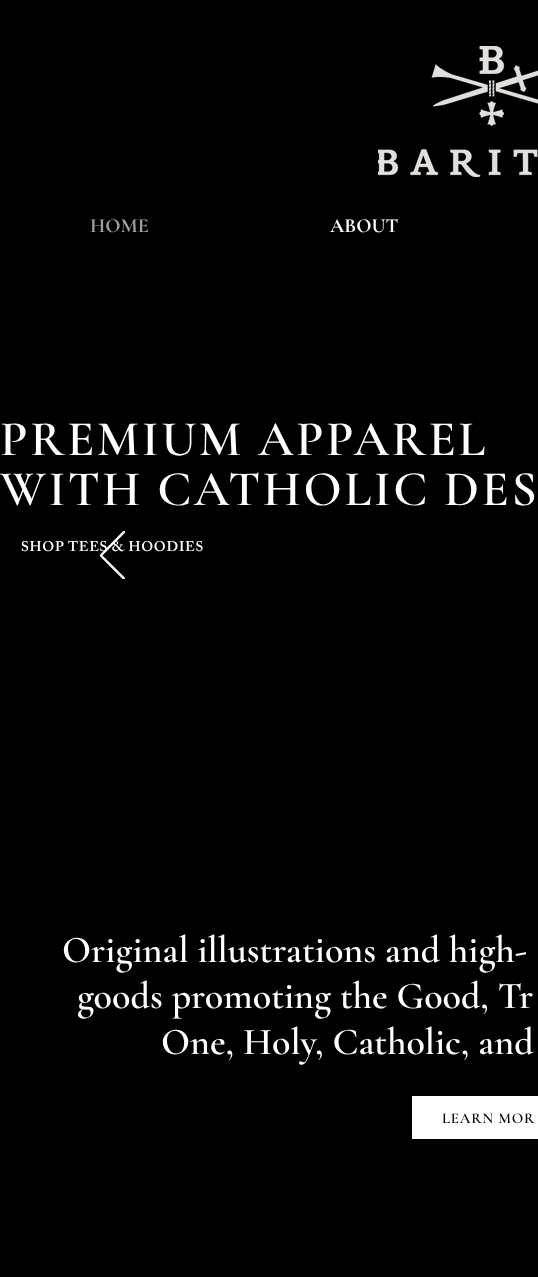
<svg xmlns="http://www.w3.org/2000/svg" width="538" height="1277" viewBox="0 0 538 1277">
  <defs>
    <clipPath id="clip1"><path d="M100 531h25v48H100z"/></clipPath>
  </defs>
  <rect width="100%" height="100%" fill="#000"/>
  <image x="378" y="46" width="160" height="131" href="img/1.png"/>
  <g clip-path="url(#clip1)">
    <path d="M124 579.5L100 555.5L124 531L125 532L101.5 555.5L125 578.5Z" fill="none" stroke="#fff" stroke-width="1.2"/>
  </g>
  <path d="M412 1096h126v43H412z" fill="#fff"/>
  <text x="90" y="232" font-family="Cormorant Garamond" font-size="20" font-weight="bold" fill="#a0a09f">HOME</text>
  <text x="330" y="232" font-family="Cormorant Garamond" font-size="20" font-weight="bold" fill="#fff">ABOUT</text>
  <g font-family="Cormorant Garamond" font-size="50" font-weight="600" letter-spacing="2.5" fill="#fff">
    <text x="0" y="455">PREMIUM APPAREL</text>
    <text x="0" y="505">WITH CATHOLIC DES</text>
  </g>
  <text x="21" y="551" font-family="'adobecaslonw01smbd'" font-size="14" font-weight="600" letter-spacing="0.75" fill="#fff">SHOP TEES &amp; HOODIES</text>
  <g font-family="Cormorant Garamond" font-size="38" font-weight="600" fill="#fff">
    <text x="62" y="962">Original illustrations and high-</text>
    <text x="77" y="1008">goods promoting the Good, Tr</text>
    <text x="161" y="1054">One, Holy, Catholic, and</text>
  </g>
  <text x="442" y="1123" font-family="Cormorant Garamond" font-size="15" font-weight="600" letter-spacing="0.75" fill="#000">LEARN MOR</text>
</svg>
